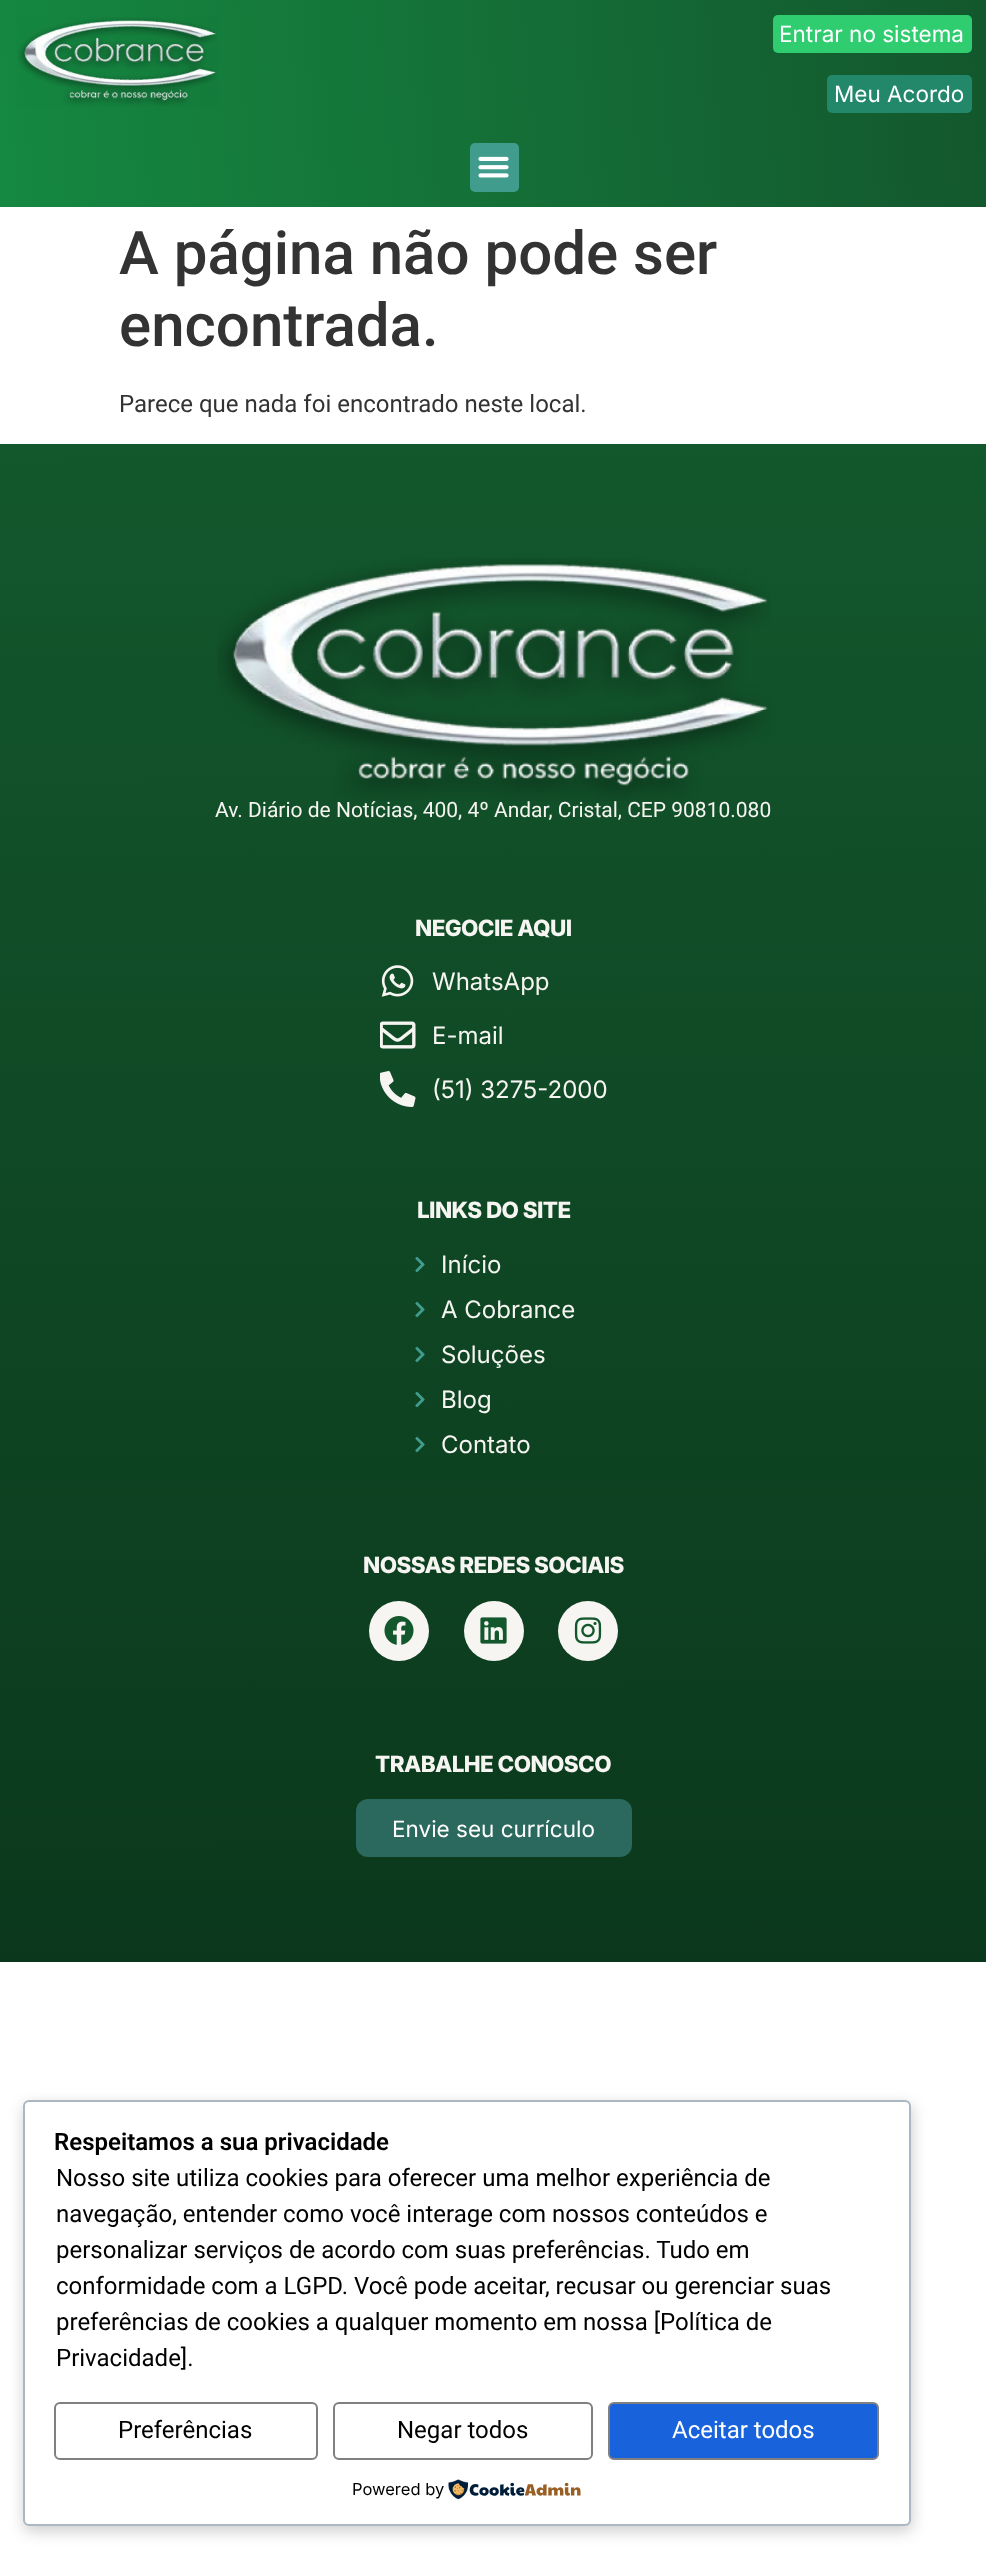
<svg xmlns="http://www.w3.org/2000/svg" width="986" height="2556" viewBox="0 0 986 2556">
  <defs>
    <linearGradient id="g1" gradientUnits="userSpaceOnUse" x1="-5.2" y1="147" x2="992" y2="60"><stop offset="0" stop-color="#158841"/><stop offset="1" stop-color="#13572d"/></linearGradient>
    <linearGradient id="g2" gradientUnits="userSpaceOnUse" x1="493" y1="444" x2="494" y2="1962"><stop offset="0" stop-color="#13572d"/><stop offset="1" stop-color="#0b381c"/></linearGradient>
  </defs>
  <rect width="100%" height="100%" fill="#fff"/>
  <path d="M0 0h986v207H0z" fill="url(#g1)"/>
  <image x="17" y="17" width="201" height="90" href="img/1.png"/>
  <rect x="773" y="15" width="199" height="38" rx="5" fill="#2fcc70"/>
  <rect x="827" y="75" width="145" height="38" rx="5" fill="#238769"/>
  <rect x="470" y="143" width="49" height="49" rx="5" fill="#409c8c"/>
  <image x="478" y="156" width="31" height="22" href="img/2.png"/>
  <path d="M0 444h986v1518H0z" fill="url(#g2)"/>
  <image x="217" y="558" width="554" height="243" href="img/3.png"/>
  <image x="381" y="965" width="33" height="32" href="img/4.png"/>
  <image x="380" y="1021" width="36" height="28" href="img/5.png"/>
  <image x="380" y="1071" width="36" height="36" href="img/6.png"/>
  <image x="415" y="1256" width="10" height="17" href="img/7.png"/>
  <image x="415" y="1301" width="10" height="17" href="img/8.png"/>
  <image x="415" y="1346" width="10" height="17" href="img/9.png"/>
  <image x="415" y="1391" width="10" height="17" href="img/10.png"/>
  <image x="415" y="1436" width="10" height="17" href="img/11.png"/>
  <circle cx="399" cy="1631" r="30" fill="#f6f5f2"/>
  <image x="384" y="1616" width="30" height="29" href="img/12.png"/>
  <circle cx="494" cy="1631" r="30" fill="#f6f5f2"/>
  <image x="480" y="1617" width="27" height="27" href="img/13.png"/>
  <circle cx="588" cy="1631" r="30" fill="#f6f5f2"/>
  <image x="574" y="1617" width="28" height="27" href="img/14.png"/>
  <rect x="356" y="1799" width="276" height="58" rx="12" fill="#2b685d"/>
  <rect x="24" y="2105" width="888" height="426" rx="6" fill="#00000033" filter="blur(7.5px)"/>
  <rect x="24" y="2101" width="886" height="424" rx="5" fill="#fff" stroke="#abb8c3" stroke-width="2"/>
  <rect x="55" y="2403" width="262" height="56" rx="5" fill="none" stroke="#808080" stroke-width="2"/>
  <rect x="334" y="2403" width="258" height="56" rx="5" fill="none" stroke="#808080" stroke-width="2"/>
  <rect x="609" y="2403" width="269" height="56" rx="5" fill="#1863dc" stroke="#808080" stroke-width="2"/>
  <image x="448" y="2479" width="133" height="21" href="img/15.png"/>
  <g font-family="Inter" font-size="22.5" fill="#fff">
    <text x="779" y="42">Entrar no sistema</text>
    <text x="834" y="102">Meu Acordo</text>
  </g>
  <g font-family="Roboto" font-size="60" font-weight="500" fill="#333">
    <text x="119" y="274">A página não pode ser</text>
    <text x="119" y="346">encontrada.</text>
  </g>
  <text x="119" y="412" font-family="Roboto" font-size="24" fill="#333">Parece que nada foi encontrado neste local.</text>
  <text x="215" y="817" font-family="Roboto" font-size="21" fill="#f6f5f2">Av. Diário de Notícias, 400, 4º Andar, Cristal, CEP 90810.080</text>
  <text x="415" y="936" font-family="Inter" font-size="22.5" font-weight="800" letter-spacing="-0.6" fill="#f6f5f2">NEGOCIE AQUI</text>
  <g font-family="Inter" font-size="24" fill="#f6f5f2">
    <text x="432" y="990">WhatsApp</text>
    <text x="432" y="1044">E-mail</text>
    <text x="432" y="1098">(51) 3275-2000</text>
  </g>
  <text x="417" y="1218" font-family="Inter" font-size="22.5" font-weight="800" letter-spacing="-0.6" fill="#f6f5f2">LINKS DO SITE</text>
  <g font-family="Inter" font-size="24" fill="#f6f5f2">
    <text x="441" y="1273">Início</text>
    <text x="441" y="1318">A Cobrance</text>
    <text x="441" y="1363">Soluções</text>
    <text x="441" y="1408">Blog</text>
    <text x="441" y="1453">Contato</text>
  </g>
  <g font-family="Inter" font-size="22.5" font-weight="800" letter-spacing="-0.6" fill="#f6f5f2">
    <text x="363" y="1573">NOSSAS REDES SOCIAIS</text>
    <text x="375" y="1772">TRABALHE CONOSCO</text>
  </g>
  <text x="392" y="1837" font-family="Inter" font-size="22.5" fill="#fff">Envie seu currículo</text>
  <text x="54" y="2150" font-family="Roboto" font-size="24" font-weight="600" fill="#000">Respeitamos a sua privacidade</text>
  <g font-family="Roboto" font-size="24" fill="#000">
    <text x="56" y="2186">Nosso site utiliza cookies para oferecer uma melhor experiência de</text>
    <text x="56" y="2222">navegação, entender como você interage com nossos conteúdos e</text>
    <text x="56" y="2258">personalizar serviços de acordo com suas preferências. Tudo em</text>
    <text x="56" y="2294">conformidade com a LGPD. Você pode aceitar, recusar ou gerenciar suas</text>
    <text x="56" y="2330">preferências de cookies a qualquer momento em nossa [Política de</text>
    <text x="56" y="2366">Privacidade].</text>
    <text x="118" y="2438">Preferências</text>
    <text x="397" y="2438">Negar todos</text>
  </g>
  <text x="672" y="2438" font-family="Roboto" font-size="24" fill="#fff">Aceitar todos</text>
  <text x="352" y="2495" font-family="Inter" font-size="16.5" fill="#000">Powered by</text>
</svg>
